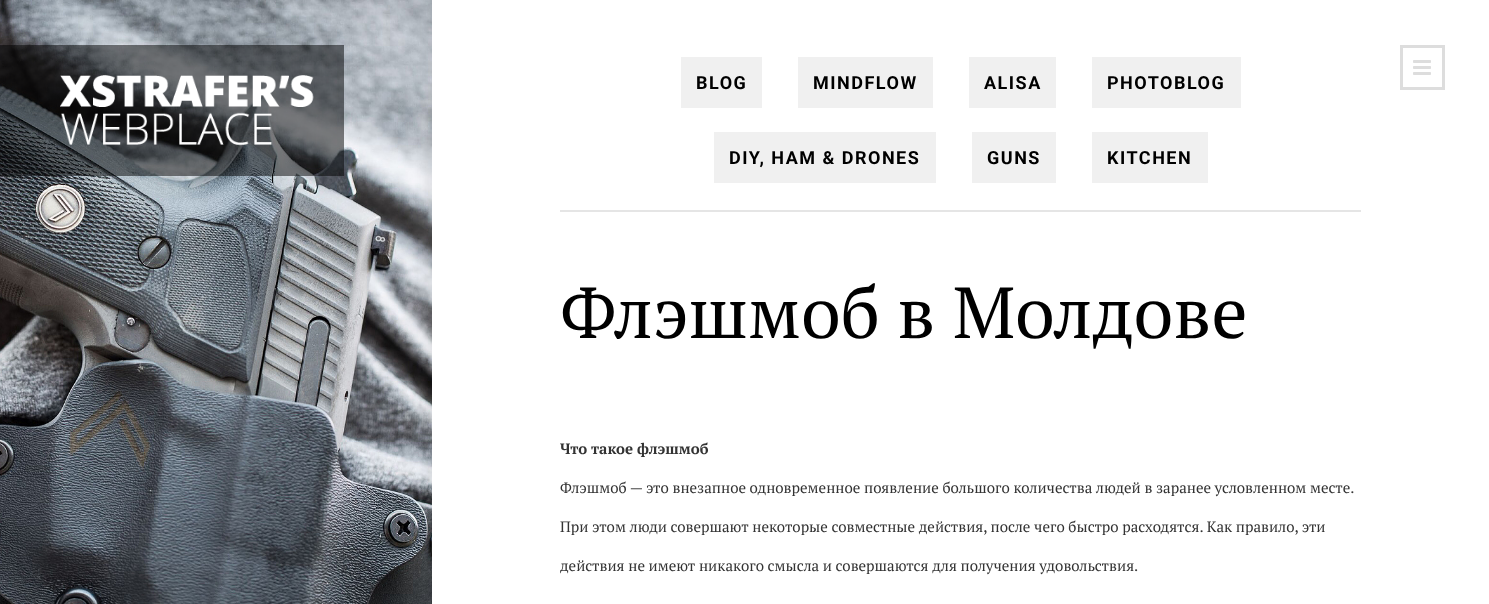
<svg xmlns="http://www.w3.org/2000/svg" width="1489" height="604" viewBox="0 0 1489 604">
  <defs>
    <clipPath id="clip1"><path d="M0 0h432v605H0z"/></clipPath>
  </defs>
  <rect width="100%" height="100%" fill="#fff"/>
  <image x="0" y="0" width="432" height="604" href="img/1.png"/>
  <g clip-path="url(#clip1)">
    <path d="M432 0h2v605H432z" fill="#00000080" filter="blur(7.5px)"/>
  </g>
  <path d="M0 45h344v131H0z" fill="#00000080"/>
  <image x="60" y="75" width="254" height="71" href="img/2.png"/>
  <path d="M1401.5 46.5h42v42H1401.5z" fill="none" stroke="#ddd" stroke-width="3"/>
  <image x="1413" y="60" width="18" height="15" href="img/3.png"/>
  <path d="M560 210h801v2H560z" fill="#e5e5e5"/>
  <path d="M681 57h81v51H681z" fill="#f0f0f0"/>
  <path d="M798 57h135v51H798z" fill="#f0f0f0"/>
  <path d="M969 57h87v51H969z" fill="#f0f0f0"/>
  <path d="M1092 57h149v51H1092z" fill="#f0f0f0"/>
  <path d="M714 132h222v51H714z" fill="#f0f0f0"/>
  <path d="M972 132h84v51H972z" fill="#f0f0f0"/>
  <path d="M1092 132h116v51H1092z" fill="#f0f0f0"/>
  <g font-family="Roboto" font-size="18" font-weight="bold" letter-spacing="1.5" fill="#000">
    <text x="696" y="89">BLOG</text>
    <text x="813" y="89">MINDFLOW</text>
    <text x="984" y="89">ALISA</text>
    <text x="1107" y="89">PHOTOBLOG</text>
    <text x="729" y="164">DIY, HAM &amp; DRONES</text>
    <text x="987" y="164">GUNS</text>
    <text x="1107" y="164">KITCHEN</text>
  </g>
  <text x="560" y="338" font-family="PT Serif" font-size="72" fill="#000">Флэшмоб в Молдове</text>
  <text x="560" y="454" font-family="PT Serif" font-size="15" font-weight="bold" fill="#333">Что такое флэшмоб</text>
  <g font-family="PT Serif" font-size="15" fill="#333">
    <text x="560" y="493">Флэшмоб — это внезапное одновременное появление большого количества людей в заранее условленном месте.</text>
    <text x="560" y="532">При этом люди совершают некоторые совместные действия, после чего быстро расходятся. Как правило, эти</text>
    <text x="560" y="571">действия не имеют никакого смысла и совершаются для получения удовольствия.</text>
  </g>
</svg>
